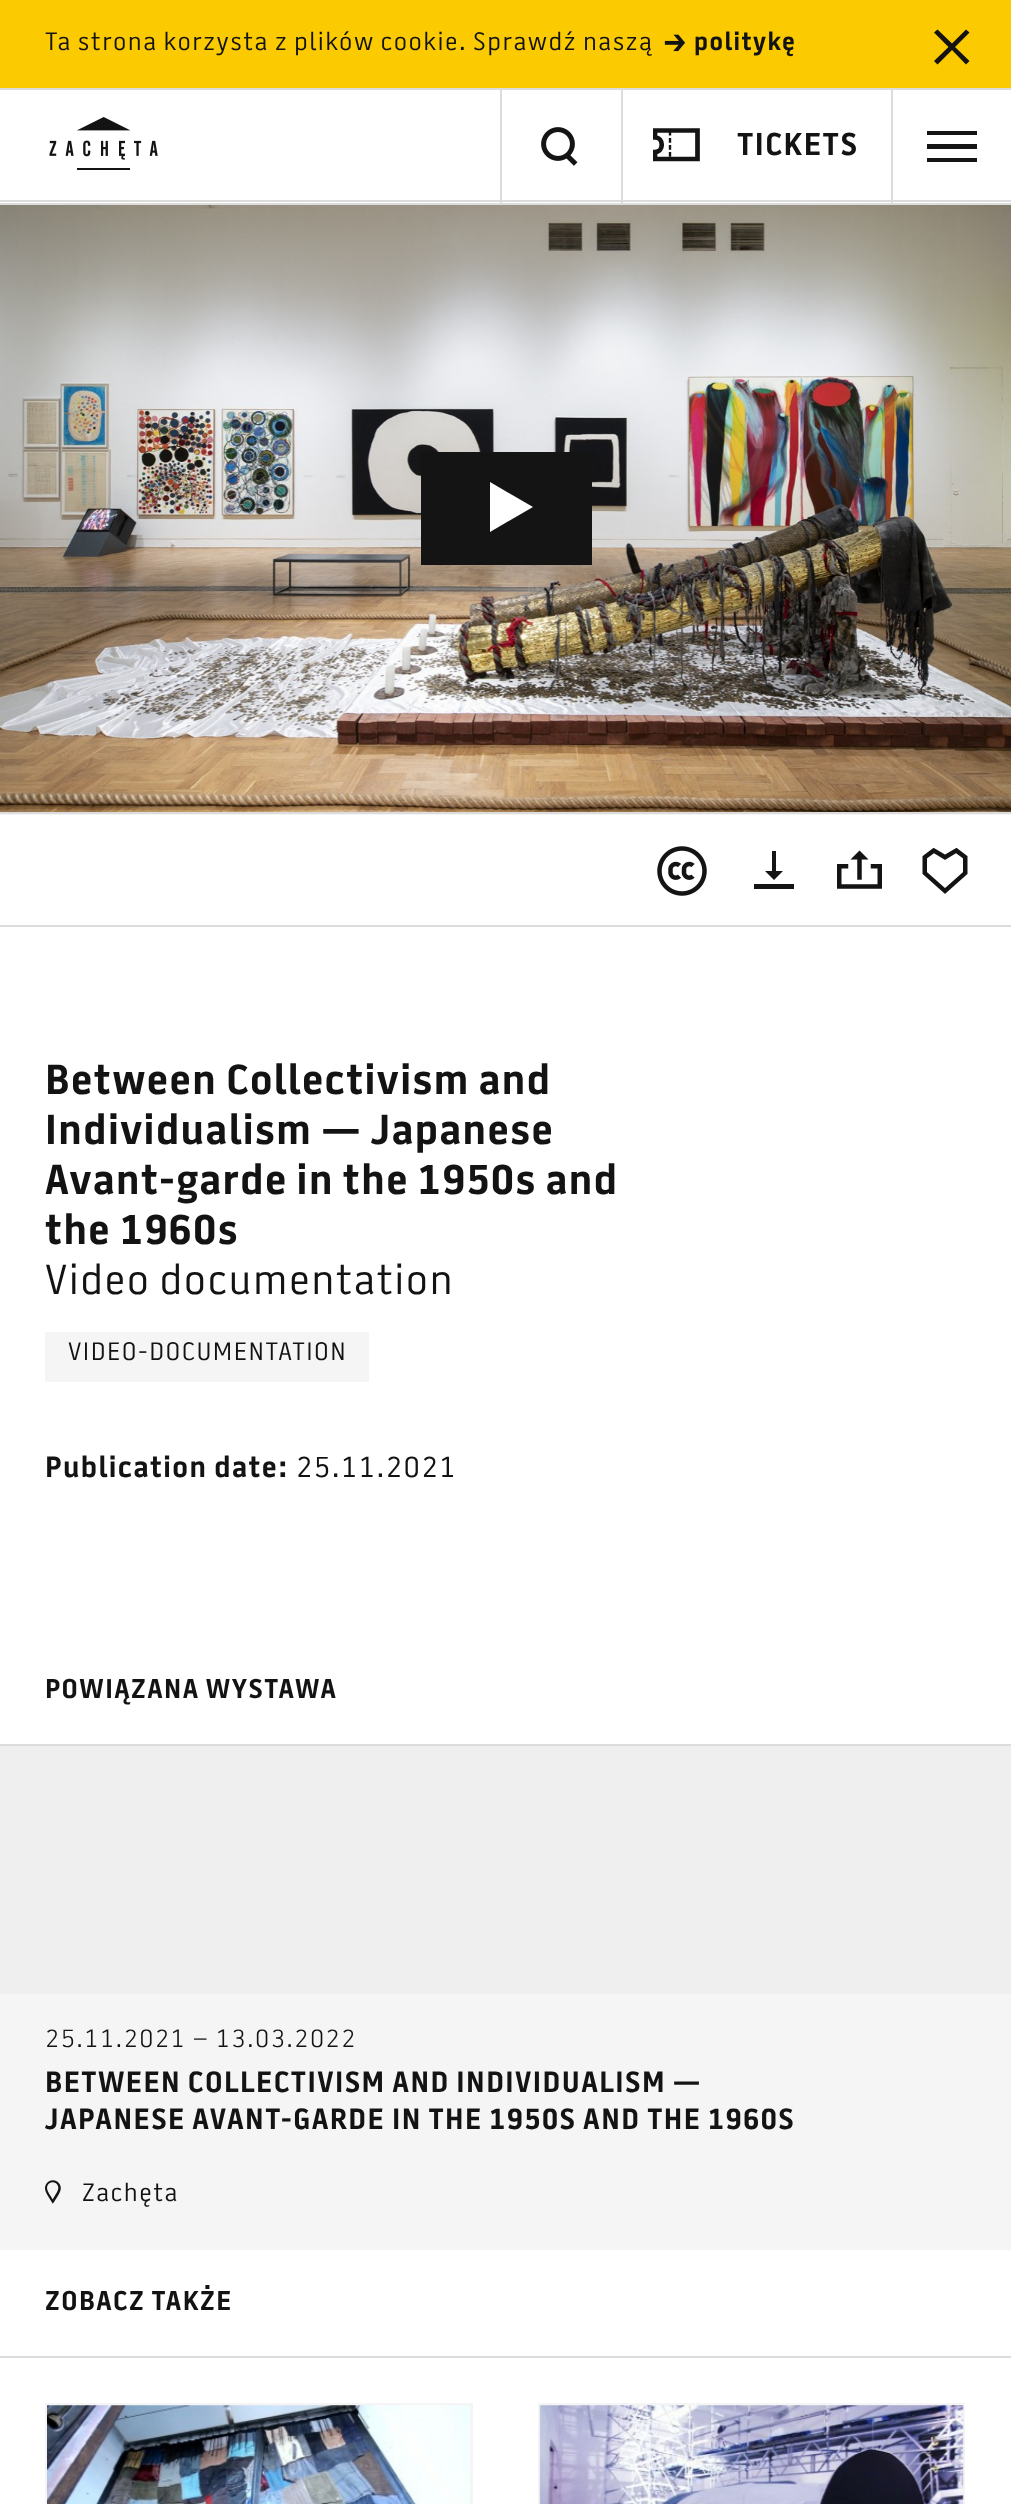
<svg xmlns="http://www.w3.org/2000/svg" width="1011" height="2504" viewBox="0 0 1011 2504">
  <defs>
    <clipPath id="clip1"><path d="M653 128h47v34H653z"/></clipPath>
  </defs>
  <rect width="100%" height="100%" fill="#fff"/>
  <path d="M0 0h1011v88H0z" fill="#fcca00"/>
  <path d="M0 88h1011v2H0z" fill="#dcdcdc"/>
  <image x="664" y="34" width="21" height="18" href="img/1.png"/>
  <path d="M966 64.5L969.5 61L955 47L969.5 32.5L966 29.5L952 43.5L937.5 29.5L934 32.5L948.5 47L934 61L937.5 64.5L952 50Z" fill="#131313"/>
  <image x="49" y="117" width="109" height="53" href="img/2.png"/>
  <path d="M500 90h2v113H500z" fill="#dcdcdc"/>
  <image x="541" y="127" width="37" height="39" href="img/3.png"/>
  <path d="M621 90h2v113H621z" fill="#dcdcdc"/>
  <g clip-path="url(#clip1)">
    <path d="M697.5 130.5V159H655V152C664 152 664 137.5 655 137.5V130.5Z" fill="none" stroke="#141414" stroke-width="4.7"/>
  </g>
  <path d="M670 132V160" fill="none" stroke="#141414" stroke-width="2.4" stroke-linecap="square" stroke-dasharray="2.36 4.72"/>
  <path d="M891 90h2v113H891z" fill="#dcdcdc"/>
  <path d="M927 131h50v4H927z" fill="#141414"/>
  <path d="M927 144h50v5H927z" fill="#141414"/>
  <path d="M927 158h50v4H927z" fill="#141414"/>
  <path d="M0 200h1011v2H0z" fill="#dcdcdc"/>
  <path d="M0 203h1011v2H0z" fill="#dcdcdc"/>
  <path d="M0 812h1011v2H0z" fill="#dcdcdc"/>
  <image x="657" y="846" width="50" height="50" href="img/4.png"/>
  <path d="M772 851h4v22H772z" fill="#141414"/>
  <path d="M774 880L765 871H783Z" fill="#141414"/>
  <path d="M754 884h40v5H754z" fill="#141414"/>
  <image x="837" y="850" width="45" height="39" href="img/5.png"/>
  <image x="922" y="847" width="46" height="47" href="img/6.png"/>
  <path d="M0 925h1011v2H0z" fill="#dcdcdc"/>
  <path d="M0 814h1011v1H0z" fill="#f5f5f5"/>
  <image x="0" y="205" width="1011" height="607" href="img/7.png"/>
  <path d="M421 452h171v113H421z" fill="#141414"/>
  <path d="M490 482L533 507L490 532Z" fill="#fff"/>
  <path d="M45 1332h324v50H45z" fill="#f5f5f5"/>
  <path d="M0 1744h1011v2H0z" fill="#dcdcdc"/>
  <path d="M0 1746h1011v248H0z" fill="#efefef"/>
  <path d="M0 1994h1011v256H0z" fill="#f5f5f5"/>
  <image x="45" y="2180" width="16" height="24" href="img/8.png"/>
  <path d="M0 2356h1011v2H0z" fill="#dcdcdc"/>
  <path d="M45 2403h428v101H45z" fill="#f5f5f5"/>
  <image x="47" y="2405" width="423" height="99" href="img/9.png"/>
  <path d="M538 2403h427v101H538z" fill="#f5f5f5"/>
  <image x="539" y="2405" width="425" height="99" href="img/10.png"/>
  <text x="45" y="50" font-family="'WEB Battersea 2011'" font-size="25.1" letter-spacing="1.45" fill="#131313">Ta strona korzysta z plików cookie. Sprawdź naszą</text>
  <text x="694" y="50" font-family="'WEB Battersea 2011'" font-size="25.1" font-weight="bold" letter-spacing="1.45" fill="#131313">politykę</text>
  <text x="737" y="155" font-family="'WEB Battersea 2011'" font-size="31.5" font-weight="bold" letter-spacing="1.5" fill="#131313">TICKETS</text>
  <g font-family="'WEB Battersea 2011'" font-size="41.75" font-weight="bold" letter-spacing="1.45" fill="#131313">
    <text x="45" y="1094">Between Collectivism and</text>
    <text x="45" y="1144">Individualism — Japanese</text>
    <text x="45" y="1194">Avant-garde in the 1950s and</text>
    <text x="45" y="1244">the 1960s</text>
  </g>
  <text x="45" y="1294" font-family="'WEB Battersea 2011'" font-size="41.75" letter-spacing="1.45" fill="#131313">Video documentation</text>
  <text x="68" y="1360" font-family="'WEB Battersea 2011'" font-size="25.1" letter-spacing="1.45" fill="#131313">VIDEO-DOCUMENTATION</text>
  <text x="45" y="1477" font-family="'WEB Battersea 2011'" font-size="29.25" font-weight="bold" letter-spacing="1.45" fill="#131313">Publication date:</text>
  <text x="296" y="1477" font-family="'WEB Battersea 2011'" font-size="29.25" letter-spacing="1.45" fill="#131313">25.11.2021</text>
  <text x="45" y="1698" font-family="'WEB Battersea 2011'" font-size="27" font-weight="bold" letter-spacing="1.45" fill="#131313">POWIĄZANA WYSTAWA</text>
  <text x="45" y="2047" font-family="'WEB Battersea 2011'" font-size="25.1" font-weight="300" letter-spacing="1.45" fill="#131313">25.11.2021 – 13.03.2022</text>
  <g font-family="'WEB Battersea 2011'" font-size="29.25" font-weight="bold" letter-spacing="1.45" fill="#131313">
    <text x="45" y="2092">BETWEEN COLLECTIVISM AND INDIVIDUALISM —</text>
    <text x="45" y="2129">JAPANESE AVANT-GARDE IN THE 1950S AND THE 1960S</text>
  </g>
  <text x="82" y="2201" font-family="'WEB Battersea 2011'" font-size="25.1" letter-spacing="1.45" fill="#131313">Zachęta</text>
  <text x="45" y="2310" font-family="'WEB Battersea 2011'" font-size="27" font-weight="bold" letter-spacing="1.45" fill="#131313">ZOBACZ TAKŻE</text>
</svg>
